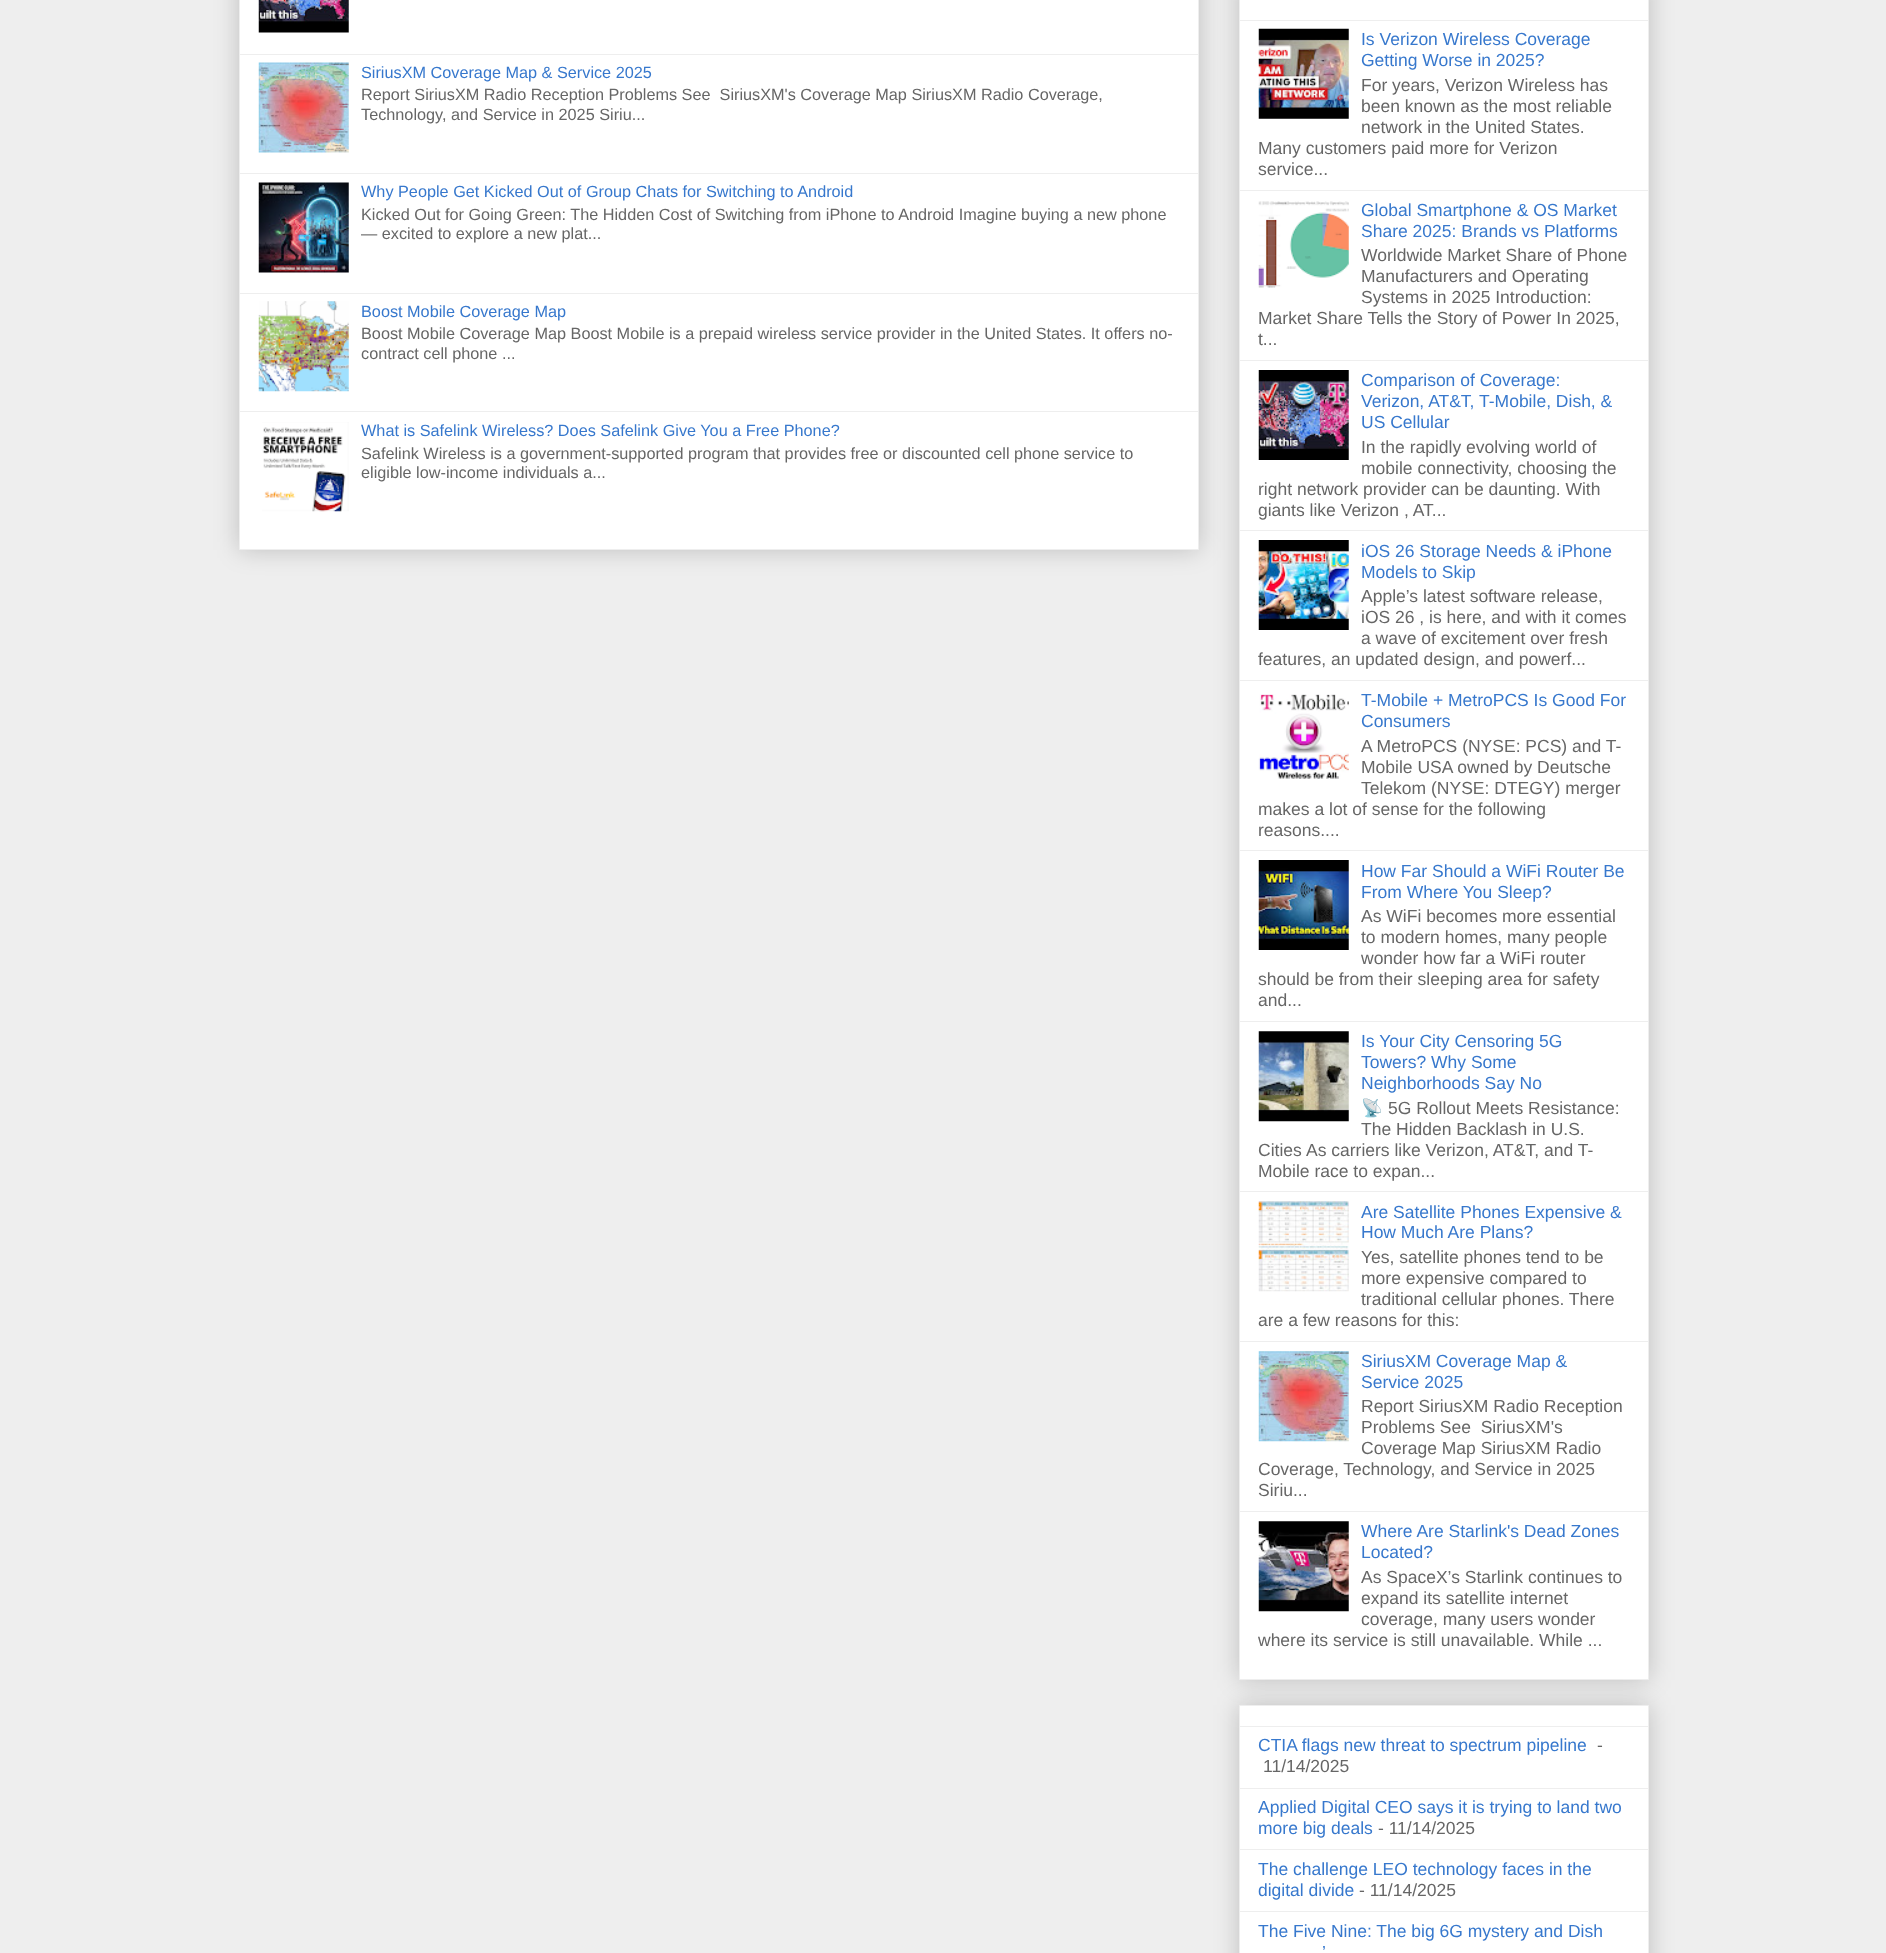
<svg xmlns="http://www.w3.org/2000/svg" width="1886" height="1953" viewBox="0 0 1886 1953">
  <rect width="100%" height="100%" fill="#eee"/>
  <path d="M239 -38h960v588H239z" fill="#00000033" filter="blur(12.5px)"/>
  <path d="M239.5 -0.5h959v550H239.5z" fill="#fff" stroke="#eee"/>
  <image x="258" y="0" width="91" height="33" href="img/1.png"/>
  <path d="M240 54h958v1H240z" fill="#eee"/>
  <image x="258" y="62" width="91" height="91" href="img/2.png"/>
  <path d="M240 173h958v1H240z" fill="#eee"/>
  <image x="258" y="182" width="91" height="91" href="img/3.png"/>
  <path d="M240 293h958v1H240z" fill="#eee"/>
  <image x="258" y="301" width="91" height="91" href="img/4.png"/>
  <path d="M240 411h958v1H240z" fill="#eee"/>
  <image x="262" y="422" width="87" height="90" href="img/5.png"/>
  <path d="M1239 -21h410v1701H1239z" fill="#00000033" filter="blur(12.5px)"/>
  <path d="M1239.5 -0.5h409v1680H1239.5z" fill="#fff" stroke="#eee"/>
  <path d="M1240 20h408v1H1240z" fill="#eee"/>
  <image x="1258" y="28" width="91" height="91" href="img/6.png"/>
  <path d="M1240 190h408v1H1240z" fill="#eee"/>
  <image x="1258" y="201" width="91" height="87" href="img/7.png"/>
  <path d="M1240 360h408v1H1240z" fill="#eee"/>
  <image x="1258" y="370" width="91" height="90" href="img/8.png"/>
  <path d="M1240 530h408v1H1240z" fill="#eee"/>
  <image x="1258" y="540" width="91" height="90" href="img/9.png"/>
  <path d="M1240 680h408v1H1240z" fill="#eee"/>
  <image x="1258" y="694" width="91" height="85" href="img/10.png"/>
  <path d="M1240 850h408v1H1240z" fill="#eee"/>
  <image x="1258" y="860" width="91" height="90" href="img/11.png"/>
  <path d="M1240 1021h408v1H1240z" fill="#eee"/>
  <image x="1258" y="1031" width="91" height="91" href="img/12.png"/>
  <path d="M1240 1191h408v1H1240z" fill="#eee"/>
  <image x="1258" y="1201" width="91" height="91" href="img/13.png"/>
  <path d="M1240 1341h408v1H1240z" fill="#eee"/>
  <image x="1258" y="1351" width="91" height="91" href="img/14.png"/>
  <path d="M1240 1511h408v1H1240z" fill="#eee"/>
  <image x="1258" y="1521" width="91" height="91" href="img/15.png"/>
  <path d="M1239 1705h410v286H1239z" fill="#00000033" filter="blur(12.5px)"/>
  <path d="M1239.5 1705.5h409v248H1239.5z" fill="#fff" stroke="#eee"/>
  <path d="M1240 1726h408v1H1240z" fill="#eee"/>
  <path d="M1240 1788h408v1H1240z" fill="#eee"/>
  <path d="M1240 1849h408v1H1240z" fill="#eee"/>
  <path d="M1240 1911h408v1H1240z" fill="#eee"/>
  <text x="361" y="78" font-family="Liberation Sans" font-size="16.25" fill="#3778cd">SiriusXM Coverage Map &amp; Service 2025</text>
  <g font-family="Liberation Sans" font-size="16.25" fill="#666">
    <text x="361" y="100" xml:space="preserve">Report SiriusXM Radio Reception Problems See  SiriusXM's Coverage Map SiriusXM Radio Coverage,</text>
    <text x="361" y="120">Technology, and Service in 2025 Siriu...</text>
  </g>
  <text x="361" y="197" font-family="Liberation Sans" font-size="16.25" fill="#3778cd">Why People Get Kicked Out of Group Chats for Switching to Android</text>
  <g font-family="Liberation Sans" font-size="16.25" fill="#666">
    <text x="361" y="220">Kicked Out for Going Green: The Hidden Cost of Switching from iPhone to Android Imagine buying a new phone</text>
    <text x="361" y="239">— excited to explore a new plat...</text>
  </g>
  <text x="361" y="317" font-family="Liberation Sans" font-size="16.25" fill="#3778cd">Boost Mobile Coverage Map</text>
  <g font-family="Liberation Sans" font-size="16.25" fill="#666">
    <text x="361" y="339">Boost Mobile Coverage Map Boost Mobile is a prepaid wireless service provider in the United States. It offers no-</text>
    <text x="361" y="359">contract cell phone ...</text>
  </g>
  <text x="361" y="436" font-family="Liberation Sans" font-size="16.25" fill="#3778cd">What is Safelink Wireless? Does Safelink Give You a Free Phone?</text>
  <g font-family="Liberation Sans" font-size="16.25" fill="#666">
    <text x="361" y="459">Safelink Wireless is a government-supported program that provides free or discounted cell phone service to</text>
    <text x="361" y="478">eligible low-income individuals a...</text>
  </g>
  <g font-family="Liberation Sans" font-size="17.5" fill="#3778cd">
    <text x="1361" y="45">Is Verizon Wireless Coverage</text>
    <text x="1361" y="66">Getting Worse in 2025?</text>
  </g>
  <g font-family="Liberation Sans" font-size="17.5" fill="#666">
    <text x="1361" y="91">For years, Verizon Wireless has</text>
    <text x="1361" y="112">been known as the most reliable</text>
    <text x="1361" y="133">network in the United States.</text>
    <text x="1258" y="154">Many customers paid more for Verizon</text>
    <text x="1258" y="175">service...</text>
  </g>
  <g font-family="Liberation Sans" font-size="17.5" fill="#3778cd">
    <text x="1361" y="216">Global Smartphone &amp; OS Market</text>
    <text x="1361" y="237">Share 2025: Brands vs Platforms</text>
  </g>
  <g font-family="Liberation Sans" font-size="17.5" fill="#666">
    <text x="1361" y="261">Worldwide Market Share of Phone</text>
    <text x="1361" y="282">Manufacturers and Operating</text>
    <text x="1361" y="303">Systems in 2025 Introduction:</text>
    <text x="1258" y="324">Market Share Tells the Story of Power In 2025,</text>
    <text x="1258" y="345">t...</text>
  </g>
  <g font-family="Liberation Sans" font-size="17.5" fill="#3778cd">
    <text x="1361" y="386">Comparison of Coverage:</text>
    <text x="1361" y="407">Verizon, AT&amp;T, T-Mobile, Dish, &amp;</text>
    <text x="1361" y="428">US Cellular</text>
  </g>
  <g font-family="Liberation Sans" font-size="17.5" fill="#666">
    <text x="1361" y="453">In the rapidly evolving world of</text>
    <text x="1361" y="474">mobile connectivity, choosing the</text>
    <text x="1258" y="495">right network provider can be daunting. With</text>
    <text x="1258" y="516">giants like Verizon , AT...</text>
  </g>
  <g font-family="Liberation Sans" font-size="17.5" fill="#3778cd">
    <text x="1361" y="557">iOS 26 Storage Needs &amp; iPhone</text>
    <text x="1361" y="578">Models to Skip</text>
  </g>
  <g font-family="Liberation Sans" font-size="17.5" fill="#666">
    <text x="1361" y="602">Apple’s latest software release,</text>
    <text x="1361" y="623">iOS 26 , is here, and with it comes</text>
    <text x="1361" y="644">a wave of excitement over fresh</text>
    <text x="1258" y="665">features, an updated design, and powerf...</text>
  </g>
  <g font-family="Liberation Sans" font-size="17.5" fill="#3778cd">
    <text x="1361" y="706">T-Mobile + MetroPCS Is Good For</text>
    <text x="1361" y="727">Consumers</text>
  </g>
  <g font-family="Liberation Sans" font-size="17.5" fill="#666">
    <text x="1361" y="752">A MetroPCS (NYSE: PCS) and T-</text>
    <text x="1361" y="773">Mobile USA owned by Deutsche</text>
    <text x="1361" y="794">Telekom (NYSE: DTEGY) merger</text>
    <text x="1258" y="815">makes a lot of sense for the following</text>
    <text x="1258" y="836">reasons....</text>
  </g>
  <g font-family="Liberation Sans" font-size="17.5" fill="#3778cd">
    <text x="1361" y="877">How Far Should a WiFi Router Be</text>
    <text x="1361" y="898">From Where You Sleep?</text>
  </g>
  <g font-family="Liberation Sans" font-size="17.5" fill="#666">
    <text x="1361" y="922">As WiFi becomes more essential</text>
    <text x="1361" y="943">to modern homes, many people</text>
    <text x="1361" y="964">wonder how far a WiFi router</text>
    <text x="1258" y="985">should be from their sleeping area for safety</text>
    <text x="1258" y="1006">and...</text>
  </g>
  <g font-family="Liberation Sans" font-size="17.5" fill="#3778cd">
    <text x="1361" y="1047">Is Your City Censoring 5G</text>
    <text x="1361" y="1068">Towers? Why Some</text>
    <text x="1361" y="1089">Neighborhoods Say No</text>
  </g>
  <text x="1361" y="1114" font-family="Noto Color Emoji" font-size="17.5" fill="#666">📡</text>
  <g font-family="Liberation Sans" font-size="17.5" fill="#666">
    <text x="1388" y="1114">5G Rollout Meets Resistance:</text>
    <text x="1361" y="1135">The Hidden Backlash in U.S.</text>
    <text x="1258" y="1156">Cities</text>
    <text x="1306" y="1156">As carriers like Verizon, AT&amp;T, and T-</text>
    <text x="1258" y="1177">Mobile race to expan...</text>
  </g>
  <g font-family="Liberation Sans" font-size="17.5" fill="#3778cd">
    <text x="1361" y="1218">Are Satellite Phones Expensive &amp;</text>
    <text x="1361" y="1238">How Much Are Plans?</text>
  </g>
  <g font-family="Liberation Sans" font-size="17.5" fill="#666">
    <text x="1361" y="1263">Yes, satellite phones tend to be</text>
    <text x="1361" y="1284">more expensive compared to</text>
    <text x="1361" y="1305">traditional cellular phones. There</text>
    <text x="1258" y="1326">are a few reasons for this:</text>
  </g>
  <g font-family="Liberation Sans" font-size="17.5" fill="#3778cd">
    <text x="1361" y="1367">SiriusXM Coverage Map &amp;</text>
    <text x="1361" y="1388">Service 2025</text>
  </g>
  <g font-family="Liberation Sans" font-size="17.5" fill="#666">
    <text x="1361" y="1412">Report SiriusXM Radio Reception</text>
    <text x="1361" y="1433" xml:space="preserve">Problems See  SiriusXM's</text>
    <text x="1361" y="1454">Coverage Map SiriusXM Radio</text>
    <text x="1258" y="1475">Coverage, Technology, and Service in 2025</text>
    <text x="1258" y="1496">Siriu...</text>
  </g>
  <g font-family="Liberation Sans" font-size="17.5" fill="#3778cd">
    <text x="1361" y="1537">Where Are Starlink's Dead Zones</text>
    <text x="1361" y="1558">Located?</text>
  </g>
  <g font-family="Liberation Sans" font-size="17.5" fill="#666">
    <text x="1361" y="1583">As SpaceX’s Starlink continues to</text>
    <text x="1361" y="1604">expand its satellite internet</text>
    <text x="1361" y="1625">coverage, many users wonder</text>
    <text x="1258" y="1646">where its service is still unavailable. While ...</text>
  </g>
  <text x="1258" y="1751" font-family="Liberation Sans" font-size="17.5" fill="#3778cd">CTIA flags new threat to spectrum pipeline</text>
  <g font-family="Liberation Sans" font-size="17.5" fill="#666">
    <text x="1597" y="1751">-</text>
    <text x="1263" y="1772">11/14/2025</text>
  </g>
  <g font-family="Liberation Sans" font-size="17.5" fill="#3778cd">
    <text x="1258" y="1813">Applied Digital CEO says it is trying to land two</text>
    <text x="1258" y="1834">more big deals</text>
  </g>
  <text x="1378" y="1834" font-family="Liberation Sans" font-size="17.5" fill="#666">- 11/14/2025</text>
  <g font-family="Liberation Sans" font-size="17.5" fill="#3778cd">
    <text x="1258" y="1875">The challenge LEO technology faces in the</text>
    <text x="1258" y="1896">digital divide</text>
  </g>
  <text x="1359" y="1896" font-family="Liberation Sans" font-size="17.5" fill="#666">- 11/14/2025</text>
  <g font-family="Liberation Sans" font-size="17.5" fill="#3778cd">
    <text x="1258" y="1937">The Five Nine: The big 6G mystery and Dish</text>
    <text x="1322" y="1958">’</text>
  </g>
</svg>
